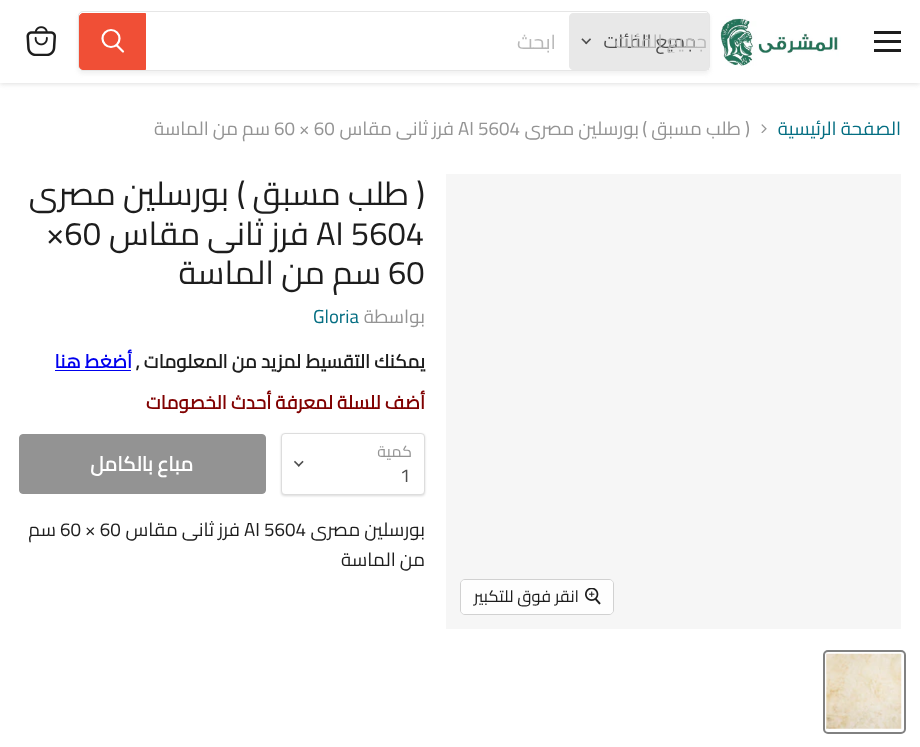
<svg xmlns="http://www.w3.org/2000/svg" width="920" height="747" viewBox="0 0 920 747">
  <defs>
    <clipPath id="clip1"><path d="M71 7H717V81H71ZM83 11H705C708 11 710 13 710 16V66C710 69 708 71 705 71H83C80 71 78 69 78 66V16C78 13 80 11 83 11Z" clip-rule="evenodd"/></clipPath>
    <clipPath id="clip2"><path d="M570 30h138v23H570z"/></clipPath>
  </defs>
  <rect width="100%" height="100%" fill="#fff"/>
  <path d="M0 1h920v83H0z" fill="#80808040" filter="blur(2.5px)"/>
  <path d="M0 0h920v83H0z" fill="#fff"/>
  <path d="M874 31h27v3H874z" fill="#1d1d1d"/>
  <path d="M874 40h27v3H874z" fill="#1d1d1d"/>
  <path d="M874 49h27v3H874z" fill="#1d1d1d"/>
  <image x="720" y="16" width="121" height="50" href="img/1.png"/>
  <g clip-path="url(#clip1)">
    <rect x="78" y="14" width="632" height="60" rx="5" fill="#8080801c" filter="blur(2px)"/>
  </g>
  <rect x="78.5" y="11.5" width="631" height="59" rx="4.5" fill="none" stroke="#80808033"/>
  <path d="M573 13H709V70H573C571 70 569 68 569 66V17C569 15 571 13 573 13Z" fill="#e8e8e8"/>
  <image x="581" y="38" width="10" height="7" href="img/2.png"/>
  <path d="M83 13.5H145.5V69.5H83C81 69.5 79.5 68 79.5 66V17C79.5 15 81 13.5 83 13.5Z" fill="#f04f36" stroke="#f04f36"/>
  <path d="M123 51.5L117 45.5" fill="none" stroke="#fff" stroke-width="2.2" stroke-linecap="round"/>
  <circle cx="111" cy="38.5" r="8.5" fill="none" stroke="#fff" stroke-width="2.2"/>
  <image x="26" y="26" width="30" height="30" href="img/3.png"/>
  <image x="761" y="124" width="6" height="9" href="img/4.png"/>
  <path d="M55 370h76v1H55z" fill="#00e"/>
  <rect x="281" y="434" width="144" height="62" rx="4" fill="#00000026" filter="blur(1px)"/>
  <rect x="281.5" y="433.5" width="143" height="61" rx="3.5" fill="#fff" stroke="#ddd"/>
  <image x="294" y="460" width="10" height="7" href="img/5.png"/>
  <rect x="19.5" y="434.5" width="246" height="59" rx="3.5" fill="#939393" stroke="#939393"/>
  <path d="M446 174h455v455H446z" fill="#f6f6f6"/>
  <rect x="460.5" y="579.5" width="153" height="35" rx="4.5" fill="none" stroke="#d1d1d1"/>
  <rect x="461" y="580" width="152" height="34" rx="4" fill="#ffffffe6"/>
  <image x="585" y="588" width="16" height="17" href="img/6.png"/>
  <rect x="824" y="651" width="81" height="82" rx="4" fill="none" stroke="#818181" stroke-width="2"/>
  <image x="826" y="653" width="76" height="76" href="img/7.png"/>
  <text x="696" y="48" font-family="Cairo" font-size="18.75" direction="rtl" fill="#4d4d4d">جميع الفئات</text>
  <g clip-path="url(#clip2)">
    <text x="707" y="48" font-family="'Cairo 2'" font-size="18.75" direction="rtl" fill="#b8b8b8">جميع الفئات</text>
  </g>
  <text x="556" y="49" font-family="Cairo" font-size="20" direction="rtl" fill="#b8b8b8">ابحث</text>
  <text x="901" y="135" font-family="Cairo" font-size="18.75" direction="rtl" fill="#046e82">الصفحة الرئيسية</text>
  <g font-family="Cairo" font-size="18.75" direction="rtl" fill="#949494">
    <text x="750" y="135">( طلب مسبق )</text>
    <text x="639" y="135">بورسلين مصرى</text>
  </g>
  <text x="458" y="135" font-family="Cairo" font-size="18.75" fill="#949494">AI 5604</text>
  <text x="454" y="135" font-family="Cairo" font-size="18.75" direction="rtl" fill="#949494">فرز ثانى مقاس</text>
  <text x="274" y="135" font-family="Cairo" font-size="18.75" fill="#949494">60 × 60</text>
  <text x="270" y="135" font-family="Cairo" font-size="18.75" direction="rtl" fill="#949494">سم من الماسة</text>
  <g font-family="Cairo" font-size="32.75" direction="rtl" fill="#1d1d1d">
    <text x="425" y="205">( طلب مسبق )</text>
    <text x="229" y="205">بورسلين مصرى</text>
  </g>
  <text x="316" y="245" font-family="Cairo" font-size="32.75" fill="#1d1d1d">AI 5604</text>
  <text x="309" y="245" font-family="Cairo" font-size="32.75" direction="rtl" fill="#1d1d1d">فرز ثانى مقاس</text>
  <g font-family="Cairo" font-size="32.75" fill="#1d1d1d">
    <text x="46" y="245">×60</text>
    <text x="388" y="284">60</text>
  </g>
  <text x="381" y="284" font-family="Cairo" font-size="32.75" direction="rtl" fill="#1d1d1d">سم من الماسة</text>
  <text x="425" y="323" font-family="Cairo" font-size="18.75" direction="rtl" fill="#949494">بواسطة</text>
  <text x="313" y="323" font-family="Cairo" font-size="18.75" fill="#046e82">Gloria</text>
  <g font-family="Cairo" font-size="18.75" font-weight="bold" direction="rtl" fill="#1d1d1d">
    <text x="425" y="368">يمكنك التقسيط</text>
    <text x="301" y="368">لمزيد من المعلومات ,</text>
  </g>
  <text x="132" y="368" font-family="Cairo" font-size="18.75" font-weight="bold" direction="rtl" fill="#00e">أضغط هنا</text>
  <text x="425" y="409" font-family="Cairo" font-size="18.75" font-weight="bold" direction="rtl" fill="#800000">أضف للسلة لمعرفة أحدث الخصومات</text>
  <text x="412" y="457" font-family="Cairo" font-size="16" direction="rtl" fill="#949494">كمية</text>
  <text x="400" y="482" font-family="Cairo" font-size="18.75" fill="#4d4d4d">1</text>
  <text x="193" y="471" font-family="Cairo" font-size="20" font-weight="bold" direction="rtl" fill="#fff">مباع بالكامل</text>
  <text x="425" y="536" font-family="Cairo" font-size="18.75" direction="rtl" fill="#1d1d1d">بورسلين مصرى</text>
  <text x="244" y="536" font-family="Cairo" font-size="18.75" fill="#1d1d1d">AI 5604</text>
  <text x="240" y="536" font-family="Cairo" font-size="18.75" direction="rtl" fill="#1d1d1d">فرز ثانى مقاس</text>
  <text x="60" y="536" font-family="Cairo" font-size="18.75" fill="#1d1d1d">60 × 60</text>
  <g font-family="Cairo" font-size="18.75" direction="rtl" fill="#1d1d1d">
    <text x="56" y="536">سم</text>
    <text x="425" y="566">من الماسة</text>
  </g>
  <text x="579" y="602" font-family="'Cairo 2'" font-size="16.5" direction="rtl" fill="#1d1d1d">انقر فوق للتكبير</text>
</svg>
